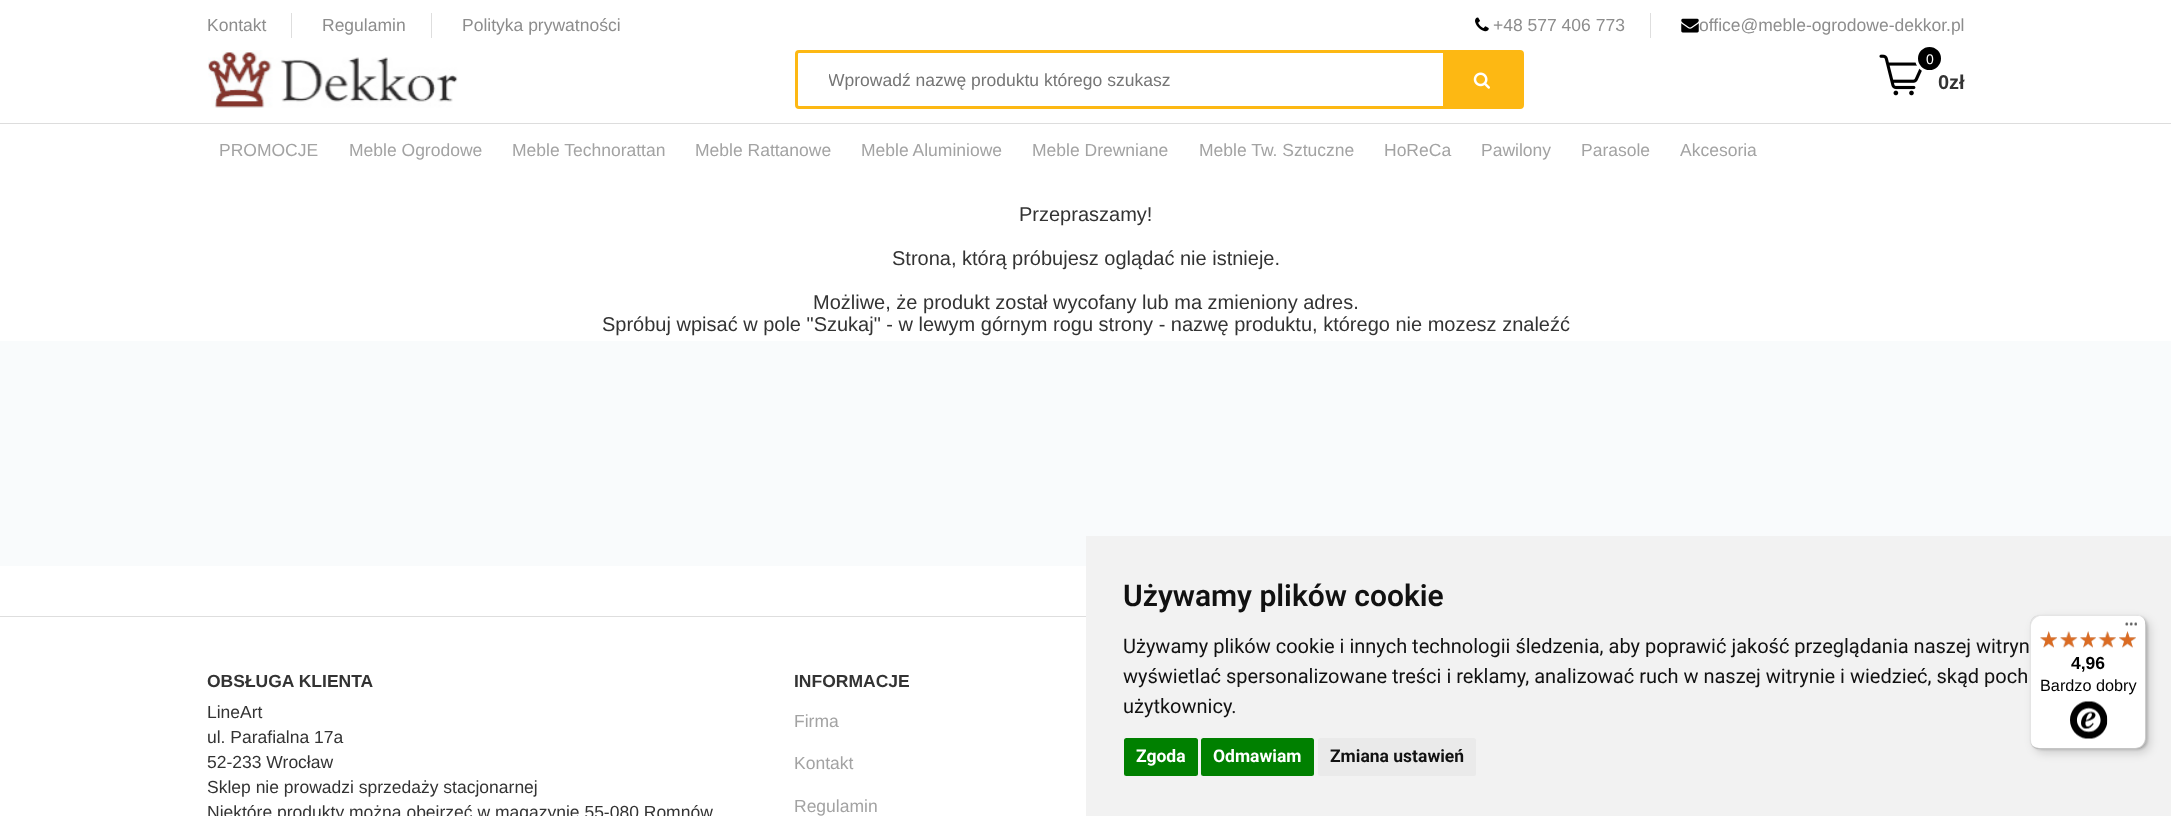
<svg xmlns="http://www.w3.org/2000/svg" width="2171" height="816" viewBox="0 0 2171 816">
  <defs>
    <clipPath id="clip1"><path d="M829 70h602v20H829z"/></clipPath>
  </defs>
  <rect width="100%" height="100%" fill="#fff"/>
  <path d="M291 13h1v25H291z" fill="#dedede"/>
  <path d="M431 13h1v25H431z" fill="#dedede"/>
  <path d="M1650 13h1v25H1650z" fill="#dedede"/>
  <image x="1475" y="17" width="14" height="15" href="img/1.png"/>
  <image x="1681" y="18" width="18" height="15" href="img/2.png"/>
  <image x="208" y="50" width="250" height="58" href="img/3.png"/>
  <rect x="796.5" y="51.5" width="726" height="56" rx="2.5" fill="none" stroke="#fdb813" stroke-width="3"/>
  <path d="M1443 53h78v53H1443z" fill="#fdb813"/>
  <image x="1473" y="72" width="17" height="17" href="img/4.png"/>
  <image x="1879" y="54" width="44" height="42" href="img/5.png"/>
  <circle cx="1929.5" cy="58.5" r="13" fill="#000" stroke="#fff" stroke-width="3"/>
  <path d="M0 123h2171v1H0z" fill="#ddd"/>
  <path d="M0 341h2171v225H0z" fill="#f9fbfc"/>
  <path d="M0 616h1086v1H0z" fill="#dedede"/>
  <path d="M1086 536h1085v280H1086z" fill="#f2f2f2"/>
  <rect x="1124" y="738" width="74" height="38" rx="2.5" fill="#008000"/>
  <rect x="1201" y="738" width="113" height="38" rx="2.5" fill="#008000"/>
  <rect x="1318" y="738" width="158" height="38" rx="2.5" fill="#eaeaea"/>
  <rect x="2034" y="619" width="116" height="134" rx="10" fill="#00000026" filter="blur(5px)"/>
  <rect x="2031" y="616" width="117" height="134" rx="10" fill="#00000026" filter="blur(1px)"/>
  <rect x="2030" y="615" width="116" height="134" rx="10" fill="#fff"/>
  <path d="M2041 616H2138C2139 616 2141 616 2142 617C2140 616 2138 615 2136 615H2040C2034 615 2030 619 2030 625V739C2030 742 2031 745 2033 747C2032 745 2031 743 2031 740V626C2031 621 2036 616 2041 616Z" fill="#0000001a"/>
  <path d="M2032 746C2034 748 2037 749 2040 749H2136C2142 749 2146 745 2146 739V625C2146 623 2145 620 2144 619C2145 620 2145 622 2145 624V738C2145 743 2141 748 2135 748H2039C2036 748 2034 747 2032 746Z" fill="#00000033"/>
  <image x="2125" y="622" width="12" height="4" href="img/6.png"/>
  <path d="M2032 745C2034 748 2037 749 2040 749H2136C2142 749 2146 745 2146 739V738C2146 744 2141 748 2136 748H2039C2037 748 2034 747 2032 745Z" fill="#32323233"/>
  <path d="M2032 745C2034 748 2037 749 2040 749H2136C2142 749 2146 745 2146 739V738C2146 744 2141 748 2136 748H2039C2037 748 2034 747 2032 745Z" fill="#ffffff4d"/>
  <image x="2040" y="631" width="17" height="17" href="img/7.png"/>
  <image x="2060" y="631" width="17" height="17" href="img/8.png"/>
  <image x="2080" y="631" width="16" height="17" href="img/9.png"/>
  <image x="2098" y="631" width="18" height="17" href="img/10.png"/>
  <image x="2119" y="631" width="17" height="17" href="img/11.png"/>
  <image x="2040" y="631" width="17" height="17" href="img/12.png"/>
  <image x="2060" y="631" width="18" height="17" href="img/13.png"/>
  <image x="2080" y="631" width="16" height="17" href="img/14.png"/>
  <image x="2098" y="631" width="18" height="17" href="img/15.png"/>
  <image x="2119" y="631" width="17" height="17" href="img/16.png"/>
  <image x="2070" y="701" width="38" height="38" href="img/17.png"/>
  <g font-family="Liberation Sans" font-size="17.5" fill="#8d8d8d">
    <text x="207" y="31">Kontakt</text>
    <text x="322" y="31">Regulamin</text>
    <text x="462" y="31">Polityka prywatności</text>
    <text x="1493" y="31">+48 577 406 773</text>
    <text x="1699" y="31">office@meble-ogrodowe-dekkor.pl</text>
  </g>
  <g clip-path="url(#clip1)">
    <text x="828" y="86" font-family="Liberation Sans" font-size="17.5" fill="#757575">Wprowadź nazwę produktu którego szukasz</text>
  </g>
  <text x="1926" y="64" font-family="Liberation Sans" font-size="14" fill="#fff">0</text>
  <text x="1938" y="89" font-family="Liberation Sans" font-size="20" font-weight="bold" fill="#333">0zł</text>
  <g font-family="Liberation Sans" font-size="17.5" fill="#a3a3a3">
    <text x="219" y="156">PROMOCJE</text>
    <text x="349" y="156">Meble Ogrodowe</text>
    <text x="512" y="156">Meble Technorattan</text>
    <text x="695" y="156">Meble Rattanowe</text>
    <text x="861" y="156">Meble Aluminiowe</text>
    <text x="1032" y="156">Meble Drewniane</text>
    <text x="1199" y="156">Meble Tw. Sztuczne</text>
    <text x="1384" y="156">HoReCa</text>
    <text x="1481" y="156">Pawilony</text>
    <text x="1581" y="156">Parasole</text>
    <text x="1680" y="156">Akcesoria</text>
  </g>
  <g font-family="Liberation Sans" font-size="20" fill="#333">
    <text x="1019" y="221">Przepraszamy!</text>
    <text x="892" y="265">Strona, którą próbujesz oglądać nie istnieje.</text>
    <text x="813" y="309">Możliwe, że produkt został wycofany lub ma zmieniony adres.</text>
    <text x="602" y="331">Spróbuj wpisać w pole "Szukaj" - w lewym górnym rogu strony - nazwę produktu, którego nie mozesz znaleźć</text>
  </g>
  <text x="207" y="687" font-family="Liberation Sans" font-size="17.5" font-weight="bold" fill="#333">OBSŁUGA KLIENTA</text>
  <g font-family="Liberation Sans" font-size="17.5" fill="#333">
    <text x="207" y="718">LineArt</text>
    <text x="207" y="743">ul. Parafialna 17a</text>
    <text x="207" y="768">52-233 Wrocław</text>
    <text x="207" y="793">Sklep nie prowadzi sprzedaży stacjonarnej</text>
    <text x="207" y="818">Niektóre produkty można obejrzeć w magazynie 55-080 Romnów.</text>
  </g>
  <text x="794" y="687" font-family="Liberation Sans" font-size="17.5" font-weight="bold" fill="#333">INFORMACJE</text>
  <g font-family="Liberation Sans" font-size="17.5" fill="#a3a3a3">
    <text x="794" y="727">Firma</text>
    <text x="794" y="769">Kontakt</text>
    <text x="794" y="812">Regulamin</text>
  </g>
  <text x="1123" y="606" font-family="Roboto" font-size="30" font-weight="600" fill="#111">Używamy plików cookie</text>
  <g font-family="Roboto" font-size="20" fill="#111">
    <text x="1123" y="653">Używamy plików cookie i innych technologii śledzenia, aby poprawić jakość przeglądania naszej witryn</text>
    <text x="1123" y="683">wyświetlać spersonalizowane treści i reklamy, analizować ruch w naszej witrynie i wiedzieć, skąd poch</text>
    <text x="1123" y="713">użytkownicy.</text>
  </g>
  <g font-family="Roboto" font-size="17.5" font-weight="bold" fill="#fff">
    <text x="1136" y="762">Zgoda</text>
    <text x="1213" y="762">Odmawiam</text>
  </g>
  <text x="1330" y="762" font-family="Roboto" font-size="17.5" font-weight="bold" fill="#111">Zmiana ustawień</text>
  <text x="2071" y="669" font-family="Liberation Sans" font-size="17.5" font-weight="bold" fill="#000">4,96</text>
  <text x="2040" y="691" font-family="Liberation Sans" font-size="16.25" fill="#000">Bardzo dobry</text>
</svg>
